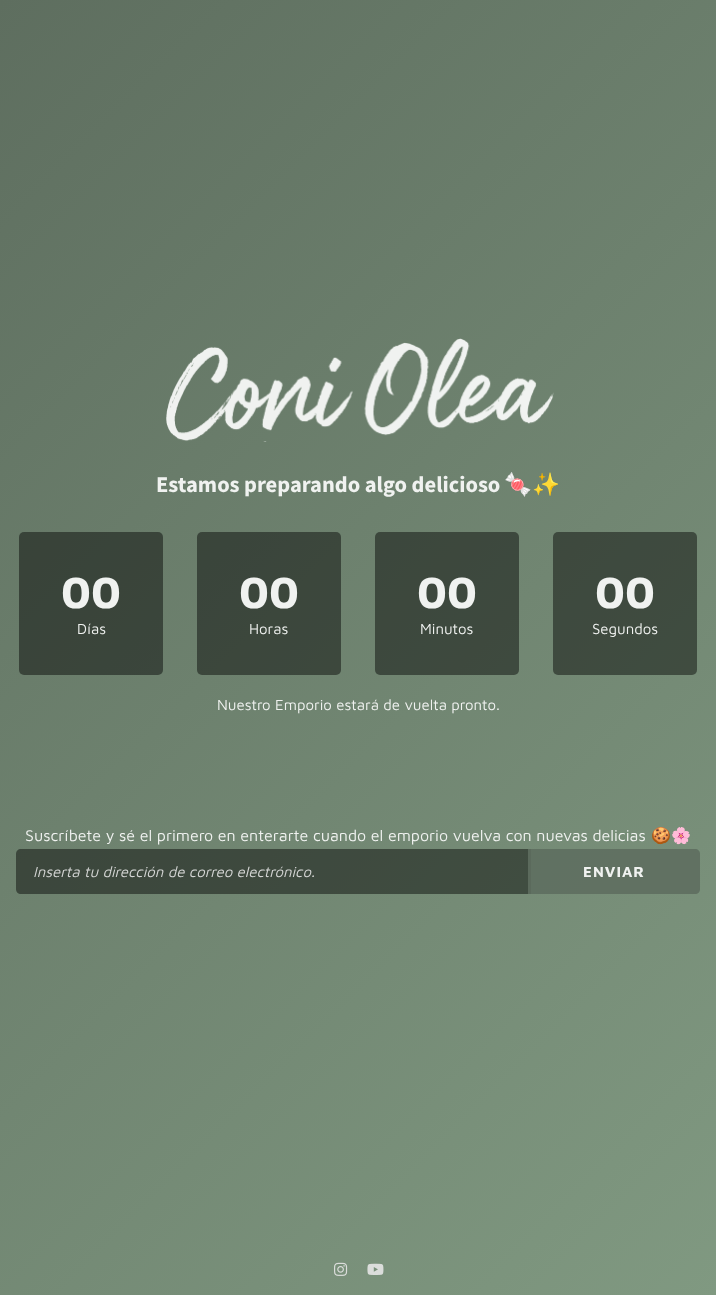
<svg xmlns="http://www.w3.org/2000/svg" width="716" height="1295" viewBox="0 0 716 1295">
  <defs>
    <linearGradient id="g1" gradientUnits="userSpaceOnUse" x1="-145" y1="145" x2="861" y2="1150"><stop offset="0" stop-color="#5e6e5f"/><stop offset="1" stop-color="#809981"/></linearGradient>
  </defs>
  <rect width="100%" height="100%" fill="#fff"/>
  <path d="M0 0h716v1295H0z" fill="url(#g1)"/>
  <image x="166" y="338" width="388" height="104" href="img/1.png"/>
  <rect x="19" y="532" width="144" height="143" rx="5" fill="#00000073"/>
  <rect x="197" y="532" width="144" height="143" rx="5" fill="#00000073"/>
  <rect x="375" y="532" width="144" height="143" rx="5" fill="#00000073"/>
  <rect x="553" y="532" width="144" height="143" rx="5" fill="#00000073"/>
  <path d="M21 849H531V894H21C18 894 16 892 16 889V854C16 851 18 849 21 849Z" fill="#00000073"/>
  <path d="M528 849H695C698 849 700 851 700 854V889C700 892 698 894 695 894H528Z" fill="#5e6e5fe6"/>
  <image x="334" y="1262" width="14" height="14" href="img/2.png"/>
  <image x="367" y="1263" width="17" height="12" href="img/3.png"/>
  <text x="156" y="492" font-family="Source Sans Pro" font-size="22.5" font-weight="bold" fill="#f0f2f0">Estamos preparando algo delicioso</text>
  <text x="504" y="492" font-family="Noto Color Emoji" font-size="22.5" font-weight="bold" fill="#f0f2f0">🍬✨</text>
  <text x="61" y="608" font-family="Maven Pro" font-size="45" font-weight="bold" fill="#f0f2f0">00</text>
  <text x="77" y="634" font-family="Maven Pro" font-size="15" fill="#f0f2f0">Días</text>
  <text x="239" y="608" font-family="Maven Pro" font-size="45" font-weight="bold" fill="#f0f2f0">00</text>
  <text x="249" y="634" font-family="Maven Pro" font-size="15" fill="#f0f2f0">Horas</text>
  <text x="417" y="608" font-family="Maven Pro" font-size="45" font-weight="bold" fill="#f0f2f0">00</text>
  <text x="420" y="634" font-family="Maven Pro" font-size="15" fill="#f0f2f0">Minutos</text>
  <text x="595" y="608" font-family="Maven Pro" font-size="45" font-weight="bold" fill="#f0f2f0">00</text>
  <g font-family="Maven Pro" font-size="15" fill="#f0f2f0">
    <text x="592" y="634">Segundos</text>
    <text x="217" y="710">Nuestro Emporio estará de vuelta pronto.</text>
  </g>
  <text x="25" y="841" font-family="Maven Pro" font-size="16" fill="#f0f2f0">Suscríbete y sé el primero en enterarte cuando el emporio vuelva con nuevas delicias</text>
  <text x="651" y="841" font-family="Noto Color Emoji" font-size="16" fill="#f0f2f0">🍪🌸</text>
  <text x="33" y="877" font-family="Maven Pro" font-size="15" font-style="italic" fill="#d5d6d5">Inserta tu dirección de correo electrónico.</text>
  <text x="583" y="877" font-family="Maven Pro" font-size="15" font-weight="bold" letter-spacing="1" fill="#f0f2f0">ENVIAR</text>
</svg>
